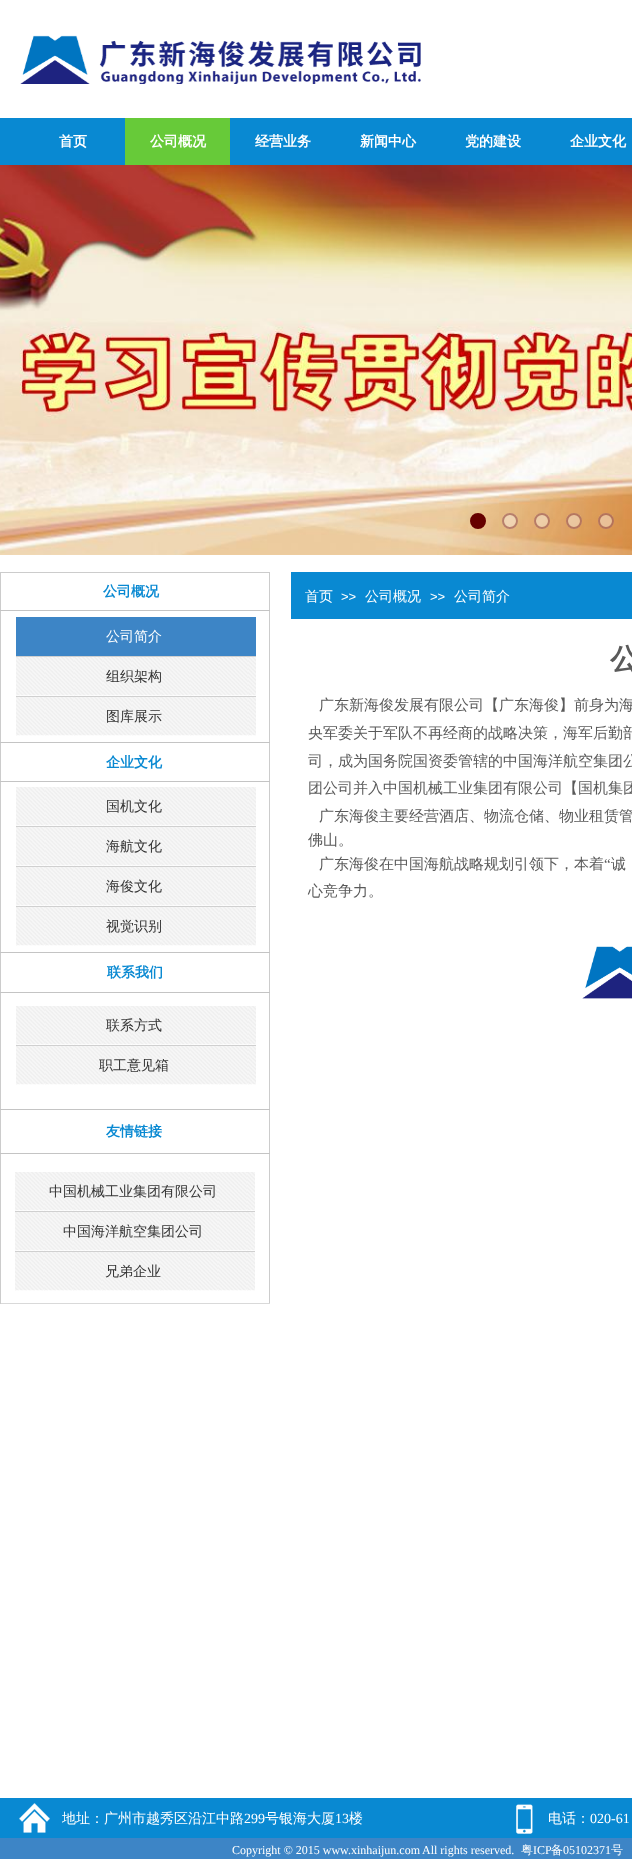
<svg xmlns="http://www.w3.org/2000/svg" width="632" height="1859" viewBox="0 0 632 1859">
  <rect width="100%" height="100%" fill="#fff"/>
  <image x="20" y="35" width="401" height="49" href="img/1.png"/>
  <path d="M0 118h632v47H0z" fill="#0989d2"/>
  <path d="M125 118h105v47H125z" fill="#67ca39"/>
  <image x="0" y="165" width="632" height="390" href="img/2.png"/>
  <circle cx="478" cy="521" r="7" fill="#600" stroke="#600" stroke-width="2"/>
  <circle cx="510" cy="521" r="8" fill="#ffffff66"/>
  <circle cx="510" cy="521" r="7" fill="none" stroke="#66000066" stroke-width="2"/>
  <circle cx="542" cy="521" r="8" fill="#ffffff66"/>
  <circle cx="542" cy="521" r="7" fill="none" stroke="#66000066" stroke-width="2"/>
  <circle cx="574" cy="521" r="8" fill="#ffffff66"/>
  <circle cx="574" cy="521" r="7" fill="none" stroke="#66000066" stroke-width="2"/>
  <circle cx="606" cy="521" r="8" fill="#ffffff66"/>
  <circle cx="606" cy="521" r="7" fill="none" stroke="#66000066" stroke-width="2"/>
  <path d="M0 572h270v1H0z" fill="#ccc"/>
  <path d="M269 572h1v732H269z" fill="#ccc"/>
  <path d="M0 1303h270v1H0z" fill="#d9d9d9"/>
  <path d="M0 572h1v732H0z" fill="#ccc"/>
  <path d="M291 572h341v47H291z" fill="#0989d2"/>
  <path d="M0 610h270v1H0z" fill="#c4c4c4"/>
  <path d="M16 617h240v39H16z" fill="#3d85c6"/>
  <path d="M16 656h240v1H16z" fill="#d0d0d0"/>
  <image x="16" y="657" width="240" height="39" href="img/3.png"/>
  <path d="M16 696h240v1H16z" fill="#d0d0d0"/>
  <image x="16" y="697" width="240" height="39" href="img/3.png"/>
  <path d="M0 742h270v1H0z" fill="#c4c4c4"/>
  <path d="M0 781h270v1H0z" fill="#c4c4c4"/>
  <image x="16" y="787" width="240" height="39" href="img/3.png"/>
  <path d="M16 826h240v1H16z" fill="#d0d0d0"/>
  <image x="16" y="827" width="240" height="39" href="img/3.png"/>
  <path d="M16 866h240v1H16z" fill="#d0d0d0"/>
  <image x="16" y="867" width="240" height="39" href="img/3.png"/>
  <path d="M16 906h240v1H16z" fill="#d0d0d0"/>
  <image x="16" y="907" width="240" height="39" href="img/3.png"/>
  <path d="M0 952h270v1H0z" fill="#c4c4c4"/>
  <image x="582" y="946" width="50" height="53" href="img/4.png"/>
  <path d="M0 992h270v1H0z" fill="#c4c4c4"/>
  <image x="16" y="1006" width="240" height="39" href="img/3.png"/>
  <path d="M16 1045h240v1H16z" fill="#d0d0d0"/>
  <image x="16" y="1046" width="240" height="39" href="img/3.png"/>
  <path d="M0 1109h270v1H0z" fill="#c4c4c4"/>
  <path d="M0 1153h270v1H0z" fill="#c4c4c4"/>
  <image x="15" y="1172" width="240" height="39" href="img/3.png"/>
  <path d="M15 1211h240v1H15z" fill="#d0d0d0"/>
  <image x="15" y="1212" width="240" height="39" href="img/3.png"/>
  <path d="M15 1251h240v1H15z" fill="#d0d0d0"/>
  <image x="15" y="1252" width="240" height="39" href="img/3.png"/>
  <path d="M0 1798h632v40H0z" fill="#0989d2"/>
  <image x="19" y="1803" width="31" height="30" href="img/5.png"/>
  <image x="516" y="1804" width="17" height="30" href="img/6.png"/>
  <path d="M0 1838h632v21H0z" fill="#3d85c6"/>
  <g font-family="WenQuanYi Zen Hei" font-size="14" font-weight="bold" fill="#fff">
    <text x="59" y="146">首页</text>
    <text x="150" y="146">公司概况</text>
    <text x="255" y="146">经营业务</text>
    <text x="360" y="146">新闻中心</text>
    <text x="465" y="146">党的建设</text>
    <text x="570" y="146">企业文化</text>
  </g>
  <text x="103" y="596" font-family="WenQuanYi Zen Hei" font-size="14" font-weight="bold" fill="#0989d2">公司概况</text>
  <text x="305" y="601" font-family="WenQuanYi Zen Hei" font-size="14" font-weight="500" fill="#fff">首页</text>
  <text x="341" y="601" font-family="Liberation Sans" font-size="13" fill="#fff">&gt;&gt;</text>
  <text x="365" y="601" font-family="WenQuanYi Zen Hei" font-size="14" font-weight="500" fill="#fff">公司概况</text>
  <text x="430" y="601" font-family="Liberation Sans" font-size="13" fill="#fff">&gt;&gt;</text>
  <g font-family="WenQuanYi Zen Hei" font-size="14" font-weight="500" fill="#fff">
    <text x="454" y="601">公司简介</text>
    <text x="106" y="641">公司简介</text>
  </g>
  <g font-family="WenQuanYi Zen Hei" font-size="14" font-weight="500" fill="#333">
    <text x="106" y="681">组织架构</text>
    <text x="106" y="721">图库展示</text>
  </g>
  <text x="610" y="669" word-spacing="-1" font-family="WenQuanYi Zen Hei" font-size="29" font-weight="bold" fill="#5a5a5a">公</text>
  <g font-family="WenQuanYi Zen Hei" font-size="15" font-weight="500" fill="#5a5a5a">
    <text x="319" y="710">广东新海俊发展有限公司【广东海俊】前身为海</text>
    <text x="308" y="738">央军委关于军队不再经商的战略决策，海军后勤部</text>
    <text x="308" y="766">司，成为国务院国资委管辖的中国海洋航空集团公</text>
    <text x="308" y="793">团公司并入中国机械工业集团有限公司【国机集团</text>
    <text x="319" y="821">广东海俊主要经营酒店、物流仓储、物业租赁管</text>
    <text x="308" y="845">佛山。</text>
    <text x="319" y="869">广东海俊在中国海航战略规划引领下，本着</text>
  </g>
  <text x="604" y="869" font-family="Liberation Serif" font-size="15" fill="#5a5a5a">“</text>
  <g font-family="WenQuanYi Zen Hei" font-size="15" font-weight="500" fill="#5a5a5a">
    <text x="611" y="869">诚</text>
    <text x="308" y="896">心竞争力。</text>
  </g>
  <text x="106" y="767" font-family="WenQuanYi Zen Hei" font-size="14" font-weight="bold" fill="#0989d2">企业文化</text>
  <g font-family="WenQuanYi Zen Hei" font-size="14" font-weight="500" fill="#333">
    <text x="106" y="811">国机文化</text>
    <text x="106" y="851">海航文化</text>
    <text x="106" y="891">海俊文化</text>
    <text x="106" y="931">视觉识别</text>
  </g>
  <text x="107" y="977" font-family="WenQuanYi Zen Hei" font-size="14" font-weight="bold" fill="#0989d2">联系我们</text>
  <g font-family="WenQuanYi Zen Hei" font-size="14" font-weight="500" fill="#333">
    <text x="106" y="1030">联系方式</text>
    <text x="99" y="1070">职工意见箱</text>
  </g>
  <text x="106" y="1136" font-family="WenQuanYi Zen Hei" font-size="14" font-weight="bold" fill="#0989d2">友情链接</text>
  <g font-family="WenQuanYi Zen Hei" font-size="14" font-weight="500" fill="#333">
    <text x="49" y="1196">中国机械工业集团有限公司</text>
    <text x="63" y="1236">中国海洋航空集团公司</text>
    <text x="105" y="1276">兄弟企业</text>
  </g>
  <text x="62" y="1823" font-family="WenQuanYi Zen Hei" font-size="14" font-weight="500" fill="#fff">地址：广州市越秀区沿江中路</text>
  <text x="244" y="1823" font-family="Liberation Serif" font-size="14" fill="#fff">299</text>
  <text x="265" y="1823" font-family="WenQuanYi Zen Hei" font-size="14" font-weight="500" fill="#fff">号银海大厦</text>
  <text x="335" y="1823" font-family="Liberation Serif" font-size="14" fill="#fff">13</text>
  <g font-family="WenQuanYi Zen Hei" font-size="14" font-weight="500" fill="#fff">
    <text x="349" y="1823">楼</text>
    <text x="548" y="1823">电话：</text>
  </g>
  <text x="590" y="1823" font-family="Liberation Serif" font-size="14" fill="#fff">020-61</text>
  <g font-family="Liberation Serif" font-size="12" fill="#fff">
    <text x="232" y="1854">Copyright © 2015 www.xinhaijun.com</text>
    <text x="422" y="1854">All rights reserved.</text>
  </g>
  <text x="521" y="1854" font-family="WenQuanYi Zen Hei" font-size="12" font-weight="500" fill="#fff">粤</text>
  <text x="533" y="1854" font-family="Liberation Serif" font-size="12" fill="#fff">ICP</text>
  <text x="551" y="1854" font-family="WenQuanYi Zen Hei" font-size="12" font-weight="500" fill="#fff">备</text>
  <text x="563" y="1854" font-family="Liberation Serif" font-size="12" fill="#fff">05102371</text>
  <text x="611" y="1854" font-family="WenQuanYi Zen Hei" font-size="12" font-weight="500" fill="#fff">号</text>
</svg>
